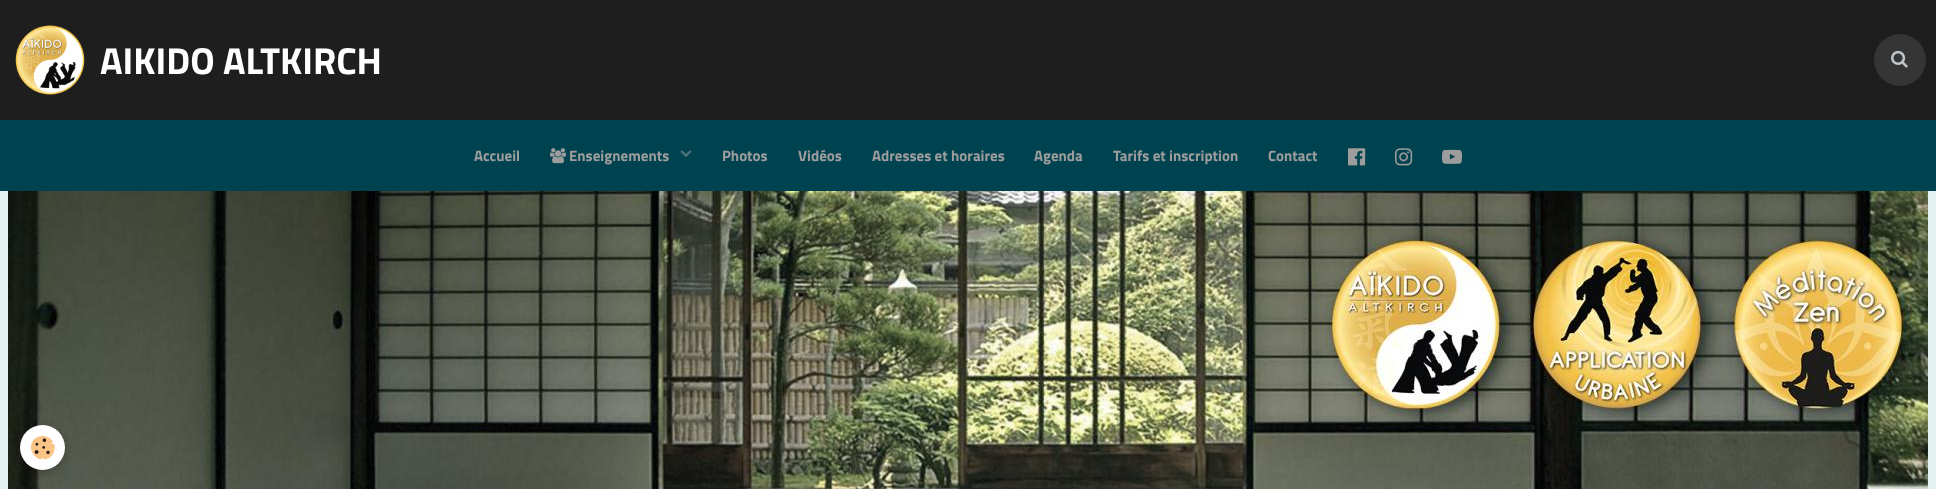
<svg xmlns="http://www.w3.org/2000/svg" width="1936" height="489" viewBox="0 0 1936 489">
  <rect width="100%" height="100%" fill="#e4f2f2"/>
  <path d="M0 0h1936v120H0z" fill="#1e1e1e"/>
  <image x="15" y="25" width="70" height="70" href="img/1.png"/>
  <circle cx="1900" cy="60" r="26" fill="#353535"/>
  <image x="1891" y="50" width="17" height="18" href="img/2.png"/>
  <path d="M0 120h1936v71H0z" fill="#004350"/>
  <image x="550" y="148" width="17" height="16" href="img/3.png"/>
  <image x="680" y="150" width="12" height="7" href="img/4.png"/>
  <image x="1348" y="148" width="18" height="18" href="img/5.png"/>
  <image x="1395" y="148" width="18" height="18" href="img/6.png"/>
  <image x="1442" y="149" width="20" height="15" href="img/7.png"/>
  <image x="8" y="191" width="1920" height="298" href="img/8.png"/>
  <rect x="20" y="428" width="45" height="45" rx="22.5" fill="#0000003d" filter="blur(5px)"/>
  <circle cx="42.5" cy="447.5" r="22.5" fill="#fff"/>
  <image x="30" y="435" width="25" height="25" href="img/9.png"/>
  <text x="100" y="74" font-family="Titillium Web" font-size="37.5" font-weight="bold" fill="#fff">AIKIDO ALTKIRCH</text>
  <g font-family="Titillium Web" font-size="15" font-weight="bold" fill="#9e9d9d">
    <text x="474" y="161">Accueil</text>
    <text x="569" y="161">Enseignements</text>
    <text x="722" y="161">Photos</text>
    <text x="798" y="161">Vidéos</text>
    <text x="872" y="161">Adresses et horaires</text>
    <text x="1034" y="161">Agenda</text>
    <text x="1113" y="161">Tarifs et inscription</text>
    <text x="1268" y="161">Contact</text>
  </g>
</svg>
